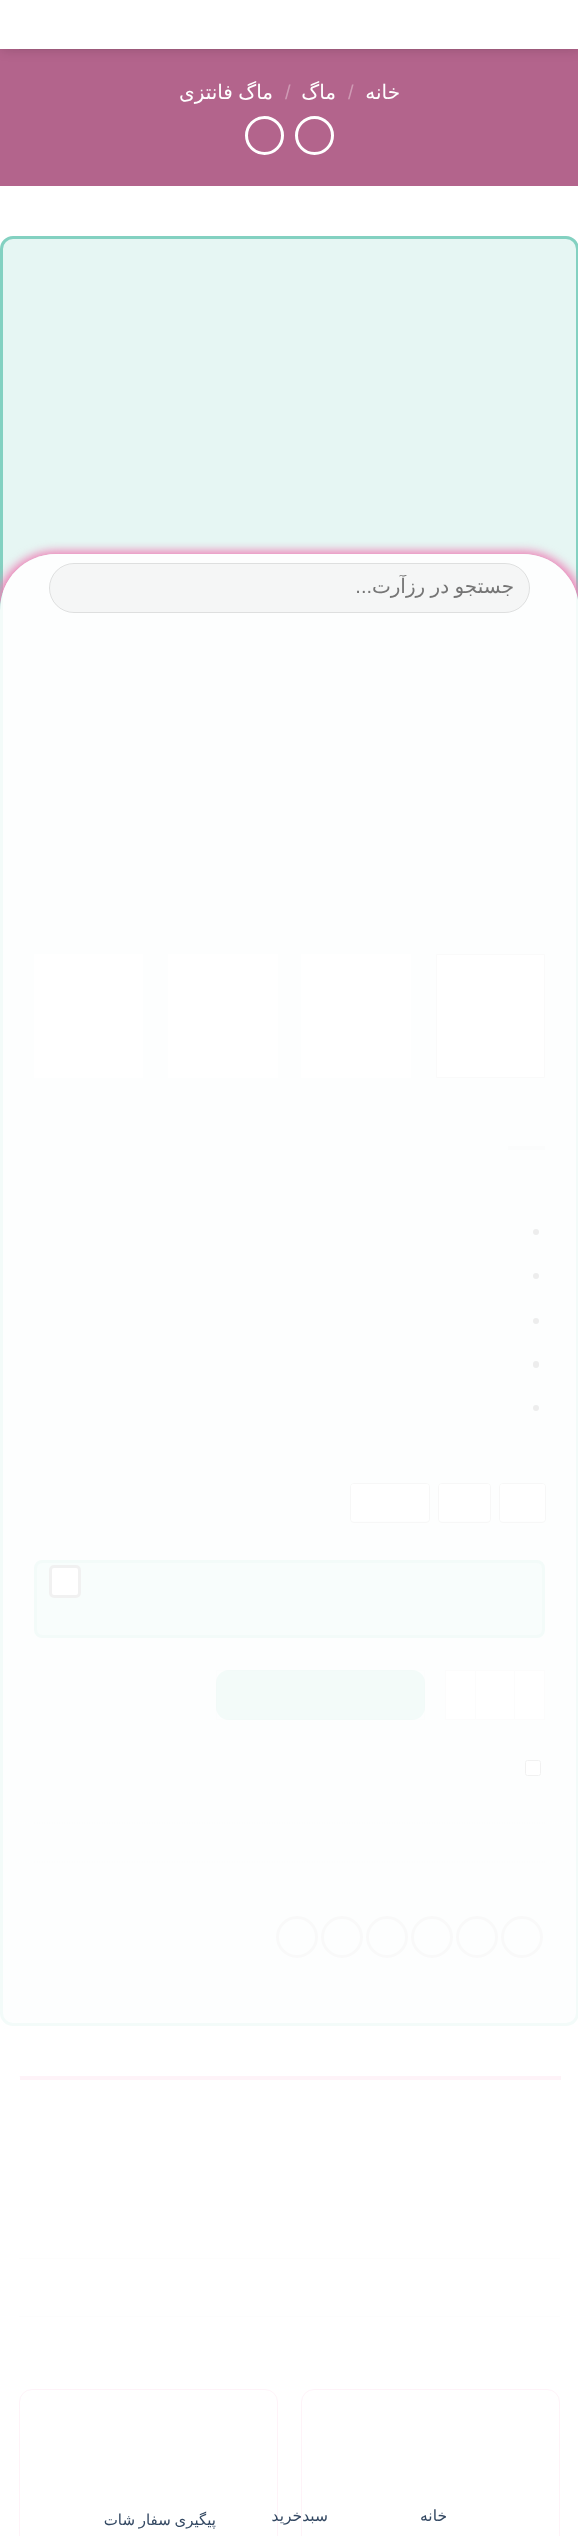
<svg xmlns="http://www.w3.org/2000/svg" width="578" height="2536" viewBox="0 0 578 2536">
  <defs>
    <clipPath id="clip1"><path d="M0 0H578V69H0ZM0-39H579V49H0Z" clip-rule="evenodd"/></clipPath>
    <clipPath id="clip2"><path d="M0 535H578V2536H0ZM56 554H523C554 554 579 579 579 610V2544H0V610C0 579 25 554 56 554Z" clip-rule="evenodd"/></clipPath>
    <clipPath id="clip3"><path d="M70 575h444v24H70z"/></clipPath>
  </defs>
  <rect width="100%" height="100%" fill="#fff"/>
  <path d="M0 49h578v137H0z" fill="#b3648c"/>
  <g clip-path="url(#clip1)">
    <path d="M1 -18h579v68H1z" fill="#00000026" filter="blur(6px)"/>
  </g>
  <path d="M1 48h577v1H1z" fill="#ffffffe6"/>
  <path d="M19 49h541v1H19z" fill="#9c5a7b"/>
  <circle cx="314.5" cy="135.5" r="18" fill="none" stroke="#fff" stroke-width="3"/>
  <circle cx="264.5" cy="135.5" r="18" fill="none" stroke="#fff" stroke-width="3"/>
  <rect x="1.5" y="237.5" width="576" height="1787" rx="11.5" fill="#e6f6f3" stroke="#83d1c1" stroke-width="3"/>
  <path d="M436.5 954.5h108v123H436.5z" fill="#fff" stroke="#ccc"/>
  <path d="M301 954h110v124H301z" fill="#fff"/>
  <path d="M168 954h110v124H168z" fill="#fff"/>
  <path d="M34 954h109v124H34z" fill="#fff"/>
  <path d="M508 1146h37v4H508z" fill="#cfdddb"/>
  <circle cx="536" cy="1232" r="3" fill="#4a4a4a"/>
  <circle cx="536" cy="1276" r="3" fill="#4a4a4a"/>
  <circle cx="536" cy="1321" r="3" fill="#4a4a4a"/>
  <rect x="533" y="1361" width="6" height="7" rx="3" fill="#4a4a4a"/>
  <circle cx="536" cy="1408" r="3" fill="#4a4a4a"/>
  <rect x="499.5" y="1483.5" width="46" height="39" rx="3.5" fill="none" stroke="#a8a8a8"/>
  <rect x="500" y="1484" width="45" height="37" rx="2.5" fill="#fff"/>
  <rect x="438.5" y="1483.5" width="52" height="39" rx="3.5" fill="none" stroke="#a8a8a8"/>
  <rect x="439" y="1484" width="51" height="37" rx="2.5" fill="#fff"/>
  <rect x="350.5" y="1483.5" width="79" height="39" rx="3.5" fill="none" stroke="#a8a8a8"/>
  <rect x="351" y="1484" width="78" height="37" rx="2.5" fill="#fff"/>
  <rect x="35.5" y="1561.5" width="508" height="75" rx="6.5" fill="#b4e3da" stroke="#83d1c1" stroke-width="3"/>
  <rect x="50.5" y="1566.5" width="29" height="30" rx="3.5" fill="#fff" stroke="#767676" stroke-width="3"/>
  <path d="M515 1671h29v48H515z" fill="#f9f9f9"/>
  <path d="M515 1670h30v1H515z" fill="#ddd"/>
  <path d="M544 1670h1v50H544z" fill="#ddd"/>
  <path d="M515 1719h30v1H515z" fill="#ddd"/>
  <path d="M475.5 1670.5h39v49H475.5z" fill="#fff" stroke="#ddd"/>
  <path d="M446 1671h29v48H446z" fill="#f9f9f9"/>
  <path d="M445 1670h30v1H445z" fill="#ddd"/>
  <path d="M445 1719h30v1H445z" fill="#ddd"/>
  <path d="M445 1670h1v50H445z" fill="#ddd"/>
  <rect x="216" y="1670" width="209" height="50" rx="13" fill="#83d1c1"/>
  <path d="M216.5 1670.5h208v49H216.5z" fill="none" stroke="#0000000d"/>
  <rect x="525.5" y="1760.5" width="15" height="15" rx="2" fill="#fff" stroke="#767676"/>
  <path d="M34 1823H545" fill="none" stroke="#ddd" stroke-width="1.2" stroke-dasharray="1.25 1.25"/>
  <path d="M34 1862H545" fill="none" stroke="#ddd" stroke-width="1.2" stroke-dasharray="1.25 1.25"/>
  <circle cx="522" cy="1937" r="19.5" fill="none" stroke="#c0c0c0" stroke-width="3"/>
  <circle cx="477" cy="1937" r="19.5" fill="none" stroke="#c0c0c0" stroke-width="3"/>
  <circle cx="432" cy="1937" r="19.5" fill="none" stroke="#c0c0c0" stroke-width="3"/>
  <circle cx="387" cy="1937" r="19.5" fill="none" stroke="#c0c0c0" stroke-width="3"/>
  <circle cx="342" cy="1937" r="19.5" fill="none" stroke="#c0c0c0" stroke-width="3"/>
  <circle cx="297" cy="1937" r="19.5" fill="none" stroke="#c0c0c0" stroke-width="3"/>
  <path d="M19 2076h1v1H19z" fill="#ececec"/>
  <path d="M20 2076h541v4H20z" fill="#ef85ba"/>
  <path d="M19 2258h541v1H19z" fill="#ececec"/>
  <path d="M19 2316h541v1H19z" fill="#ececec"/>
  <rect x="301.5" y="2389.5" width="258" height="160" rx="12.5" fill="#fef8fa" stroke="#ef85ba"/>
  <path d="M309 2494h244v42H309z" fill="#fffdff"/>
  <rect x="19.5" y="2389.5" width="258" height="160" rx="12.5" fill="#fef8fa" stroke="#ef85ba"/>
  <path d="M26 2494h244v42H26z" fill="#fffdff"/>
  <g clip-path="url(#clip2)">
    <rect x="-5" y="551" width="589" height="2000" rx="61" fill="#ed82b7" filter="blur(5px)"/>
  </g>
  <path d="M56 554H523C554 554 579 579 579 610V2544H0V610C0 579 25 554 56 554Z" fill="#ffffffe6"/>
  <rect x="49" y="563" width="481" height="50" rx="25" fill="#f5f6f6"/>
  <rect x="49.5" y="563.5" width="480" height="49" rx="24.5" fill="none" stroke="#00000017"/>
  <text x="400" y="99" font-family="DejaVu Sans" font-size="20" direction="rtl" fill="#fff">خانه</text>
  <text x="348" y="99" font-family="Liberation Sans" font-size="20" fill="#ce9ab4">/</text>
  <text x="336" y="99" font-family="DejaVu Sans" font-size="20" direction="rtl" fill="#fff">ماگ</text>
  <text x="285" y="99" font-family="Liberation Sans" font-size="20" fill="#ce9ab4">/</text>
  <text x="273" y="99" word-spacing="-1" font-family="DejaVu Sans" font-size="20" direction="rtl" fill="#fff">ماگ فانتزی</text>
  <g clip-path="url(#clip3)">
    <text x="514" y="593" word-spacing="-1" font-family="DejaVu Sans" font-size="20" direction="rtl" fill="#757575">جستجو در رزآرت</text>
  </g>
  <text x="372" y="593" font-family="Liberation Sans" font-size="20" direction="rtl" fill="#757575">...</text>
  <g font-family="DejaVu Sans" font-size="15.5" direction="rtl" fill="#334862">
    <text x="447" y="2521">خانه</text>
    <text x="328" y="2521">سبدخرید</text>
  </g>
  <text x="216" y="2525" word-spacing="-1" font-family="DejaVu Sans" font-size="15" direction="rtl" fill="#334862">پیگیری سفار شات</text>
</svg>
